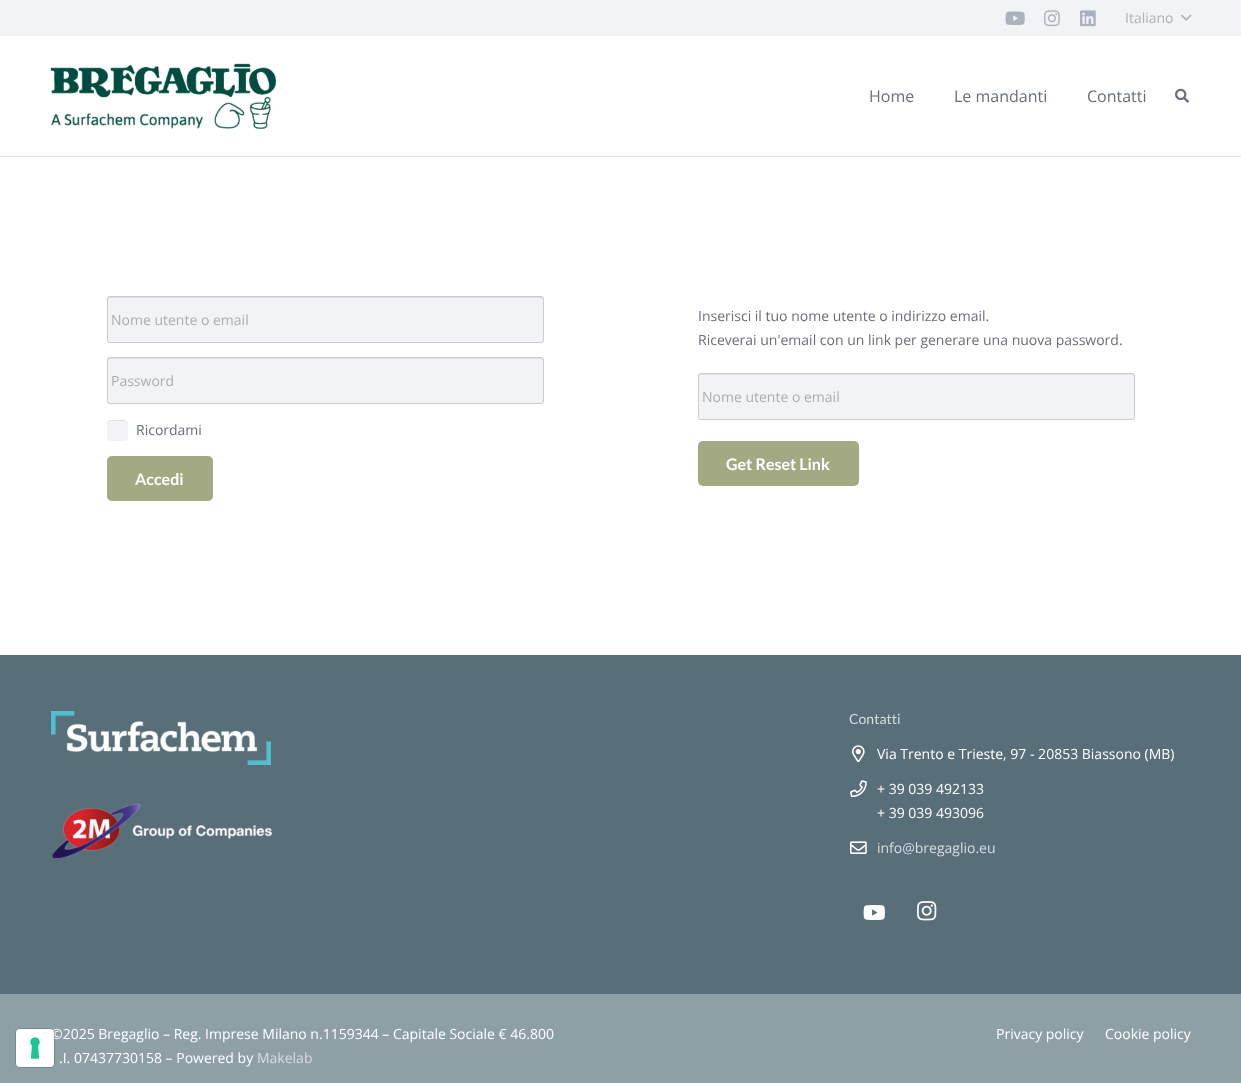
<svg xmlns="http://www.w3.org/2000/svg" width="1241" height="1083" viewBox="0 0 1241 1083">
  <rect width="100%" height="100%" fill="#fff"/>
  <path d="M0 0h1241v36H0z" fill="#f2f3f5"/>
  <image x="1005" y="11" width="20" height="14" href="img/1.png"/>
  <image x="1044" y="10" width="16" height="17" href="img/2.png"/>
  <image x="1080" y="10" width="16" height="17" href="img/3.png"/>
  <image x="1181" y="14" width="11" height="7" href="img/4.png"/>
  <path d="M0 156h1241v1H0z" fill="#ebebeb"/>
  <image x="50" y="63" width="226" height="66" href="img/5.png"/>
  <image x="1175" y="88" width="14" height="15" href="img/6.png"/>
  <rect x="107" y="296" width="437" height="47" rx="3" fill="#f2f3f5"/>
  <path d="M110 298H541C542 298 543 299 543 300C543 299 543 297 541 297H110L108 298V300C108 299 109 298 110 298Z" fill="#dfe0e1"/>
  <rect x="107.5" y="296.5" width="436" height="46" rx="2.5" fill="none" stroke="#ccc"/>
  <rect x="107" y="357" width="437" height="47" rx="3" fill="#f2f3f5"/>
  <path d="M110 359H541C542 359 543 360 543 361C543 360 543 358 541 358H110L108 359V361C108 360 109 359 110 359Z" fill="#dfe0e1"/>
  <rect x="107.5" y="357.5" width="436" height="46" rx="2.5" fill="none" stroke="#ccc"/>
  <rect x="107" y="420" width="21" height="21" rx="4" fill="#f2f3f5"/>
  <path d="M111 421H125C127 422 128 424 128 426C128 418.5 123.5 420 117.5 420C111 420 107 418.5 107 426C107 423.5 108 421 111 421ZM128 437.5H128Z" fill="#00000014" fill-rule="evenodd"/>
  <rect x="107" y="456" width="106" height="45" rx="5" fill="#a3aa83"/>
  <rect x="698" y="373" width="437" height="47" rx="3" fill="#f2f3f5"/>
  <path d="M701 375H1132C1133 375 1134 376 1134 377V375L1132 374H701C699 374 699 376 699 377C699 376 700 375 701 375Z" fill="#dfe0e1"/>
  <rect x="698.5" y="373.5" width="436" height="46" rx="2.5" fill="none" stroke="#ccc"/>
  <rect x="698" y="441" width="161" height="45" rx="5" fill="#a3aa83"/>
  <path d="M0 655h1241v339H0z" fill="#586f7a"/>
  <image x="51" y="711" width="220" height="54" href="img/8.png"/>
  <image x="51" y="803" width="221" height="56" href="img/9.png"/>
  <image x="852" y="745" width="13" height="18" href="img/10.png"/>
  <image x="850" y="780" width="17" height="18" href="img/11.png"/>
  <image x="850" y="841" width="17" height="13" href="img/12.png"/>
  <image x="863" y="905" width="22" height="15" href="img/13.png"/>
  <image x="917" y="901" width="20" height="20" href="img/14.png"/>
  <path d="M0 994h1241v89H0z" fill="#8f9fa6"/>
  <text x="1125" y="23" font-family="Open Sans" font-size="14" fill="#aab2bd">Italiano</text>
  <g font-family="Open Sans" font-size="16" fill="#676f7c">
    <text x="869" y="102">Home</text>
    <text x="954" y="102">Le mandanti</text>
    <text x="1087" y="102">Contatti</text>
  </g>
  <g font-family="Open Sans" font-size="14" fill="#acadae">
    <text x="111" y="325">Nome utente o email</text>
    <text x="111" y="386">Password</text>
  </g>
  <text x="136" y="435" font-family="Open Sans" font-size="14" fill="#676f7c">Ricordami</text>
  <text x="135" y="485" font-family="Lato" font-size="16" font-weight="bold" fill="#fff">Accedi</text>
  <g font-family="Open Sans" font-size="14" fill="#676f7c">
    <text x="698" y="321">Inserisci il tuo nome utente o indirizzo email.</text>
    <text x="698" y="345">Riceverai un'email con un link per generare una nuova password.</text>
  </g>
  <text x="702" y="402" font-family="Open Sans" font-size="14" fill="#acadae">Nome utente o email</text>
  <text x="726" y="470" font-family="Lato" font-size="16" font-weight="bold" fill="#fff">Get Reset Link</text>
  <text x="849" y="724" font-family="Lato" font-size="14" fill="#d7dde0">Contatti</text>
  <g font-family="Open Sans" font-size="14" fill="#fff">
    <text x="877" y="759">Via Trento e Trieste, 97 - 20853 Biassono (MB)</text>
    <text x="877" y="794">+ 39 039 492133</text>
    <text x="877" y="818">+ 39 039 493096</text>
  </g>
  <text x="877" y="853" font-family="Open Sans" font-size="14" fill="#d7dde0">info@bregaglio.eu</text>
  <text x="51" y="1039" font-family="Open Sans" font-size="14" fill="#fff">©2025 Bregaglio – Reg. Imprese Milano n.1159344 – Capitale Sociale € 46.800</text>
  <rect x="15.5" y="1028.5" width="39" height="39" rx="4.5" fill="none" stroke="#00000026"/>
  <rect x="16" y="1029" width="38" height="38" rx="4" fill="#fff"/>
  <image x="30" y="1037" width="10" height="22" href="img/7.png"/>
  <text x="59" y="1063" font-family="Open Sans" font-size="14" fill="#fff">.I. 07437730158 – Powered by</text>
  <text x="257" y="1063" font-family="Open Sans" font-size="14" fill="#d7dde0">Makelab</text>
  <g font-family="Open Sans" font-size="14" fill="#fff">
    <text x="996" y="1039">Privacy policy</text>
    <text x="1105" y="1039">Cookie policy</text>
  </g>
</svg>
